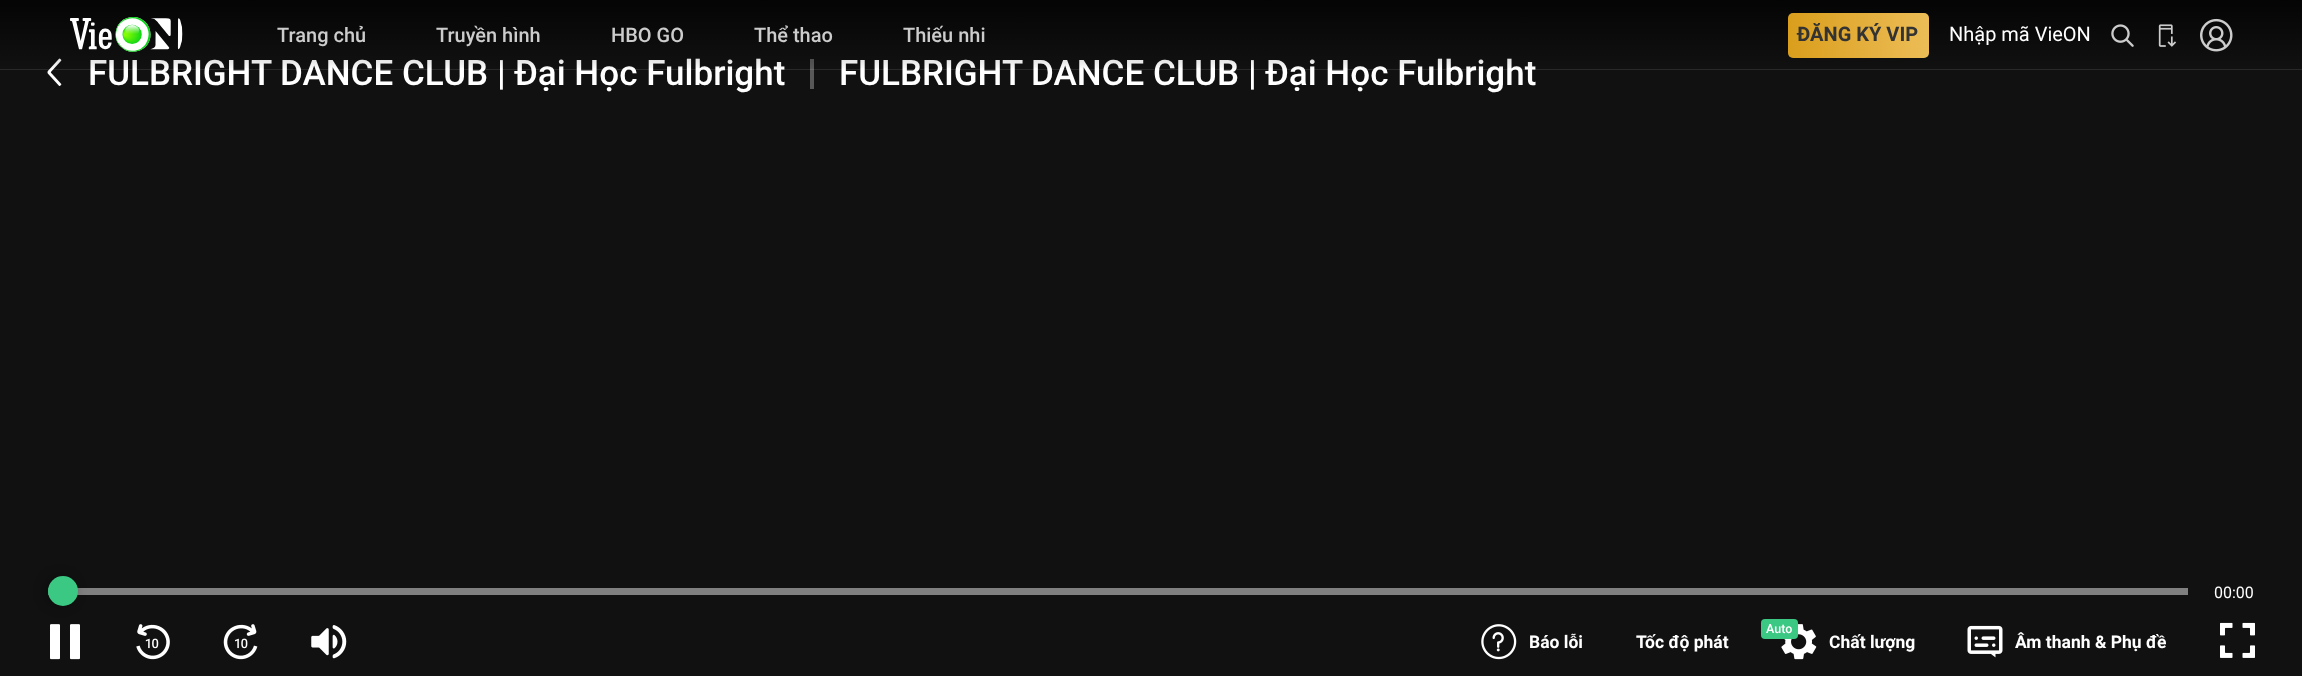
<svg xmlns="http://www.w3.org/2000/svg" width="2302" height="676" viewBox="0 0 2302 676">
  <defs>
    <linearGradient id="g1" gradientUnits="userSpaceOnUse" x1="1151" y1="70" x2="1151" y2="0"><stop offset="0" stop-color="#000" stop-opacity="0"/><stop offset="1" stop-color="#000" stop-opacity="0.75"/></linearGradient>
    <linearGradient id="g2" gradientUnits="userSpaceOnUse" x1="1788" y1="35" x2="1929" y2="35"><stop offset="0" stop-color="#da9e1c"/><stop offset="1" stop-color="#ecbd57"/></linearGradient>
  </defs>
  <rect width="100%" height="100%" fill="#111"/>
  <image x="47" y="58" width="15" height="28" href="img/5.png"/>
  <path d="M810 59h4v30H810z" fill="#585858"/>
  <path d="M0 69h2302v1H0z" fill="#ffffff1a"/>
  <path d="M48 588h2140v7H48z" fill="#808080"/>
  <rect x="45" y="576" width="30" height="30" rx="15" fill="#0000004d" filter="blur(6px)"/>
  <circle cx="63" cy="591" r="15" fill="#3ac882"/>
  <image x="50" y="624" width="30" height="36" href="img/6.png"/>
  <image x="136" y="624" width="34" height="36" href="img/7.png"/>
  <image x="223" y="624" width="35" height="36" href="img/8.png"/>
  <image x="311" y="625" width="36" height="34" href="img/9.png"/>
  <image x="1481" y="624" width="36" height="36" href="img/10.png"/>
  <image x="1781" y="624" width="36" height="36" href="img/11.png"/>
  <rect x="1761" y="619" width="37" height="20" rx="4" fill="#3ac882"/>
  <image x="1967" y="625" width="36" height="33" href="img/12.png"/>
  <image x="2220" y="622" width="35" height="36" href="img/13.png"/>
  <g font-family="Roboto" font-size="35" font-weight="500" fill="#fff">
    <text x="88" y="85">FULBRIGHT DANCE CLUB | Đại Học Fulbright</text>
    <text x="839" y="85">FULBRIGHT DANCE CLUB | Đại Học Fulbright</text>
  </g>
  <path d="M0 0h2302v68H0z" fill="url(#g1)"/>
  <image x="2200" y="18" width="33" height="34" href="img/4.png"/>
  <image x="2158" y="24" width="19" height="23" href="img/3.png"/>
  <image x="2111" y="24" width="23" height="23" href="img/2.png"/>
  <text x="1949" y="41" font-family="Roboto" font-size="20" fill="#fff">Nhập mã VieON</text>
  <rect x="1788" y="13" width="141" height="45" rx="5" fill="url(#g2)"/>
  <text x="1797" y="41" font-family="Roboto" font-size="20" font-weight="bold" fill="#333">ĐĂNG KÝ VIP</text>
  <g font-family="Roboto" font-size="20" font-weight="500" fill="#ccc">
    <text x="903" y="42">Thiếu nhi</text>
    <text x="754" y="42">Thể thao</text>
    <text x="611" y="42">HBO GO</text>
    <text x="436" y="42">Truyền hình</text>
    <text x="277" y="42">Trang chủ</text>
  </g>
  <image x="70" y="17" width="113" height="35" href="img/1.png"/>
  <text x="2214" y="598" font-family="Roboto" font-size="16" fill="#fff">00:00</text>
  <g font-family="Roboto" font-size="17.5" font-weight="bold" fill="#fff">
    <text x="1529" y="648">Báo lỗi</text>
    <text x="1636" y="648">Tốc độ phát</text>
  </g>
  <text x="1766" y="633" font-family="Roboto" font-size="12.5" font-weight="500" fill="#fff">Auto</text>
  <g font-family="Roboto" font-size="17.5" font-weight="bold" fill="#fff">
    <text x="1829" y="648">Chất lượng</text>
    <text x="2015" y="648">Âm thanh &amp; Phụ đề</text>
  </g>
</svg>
